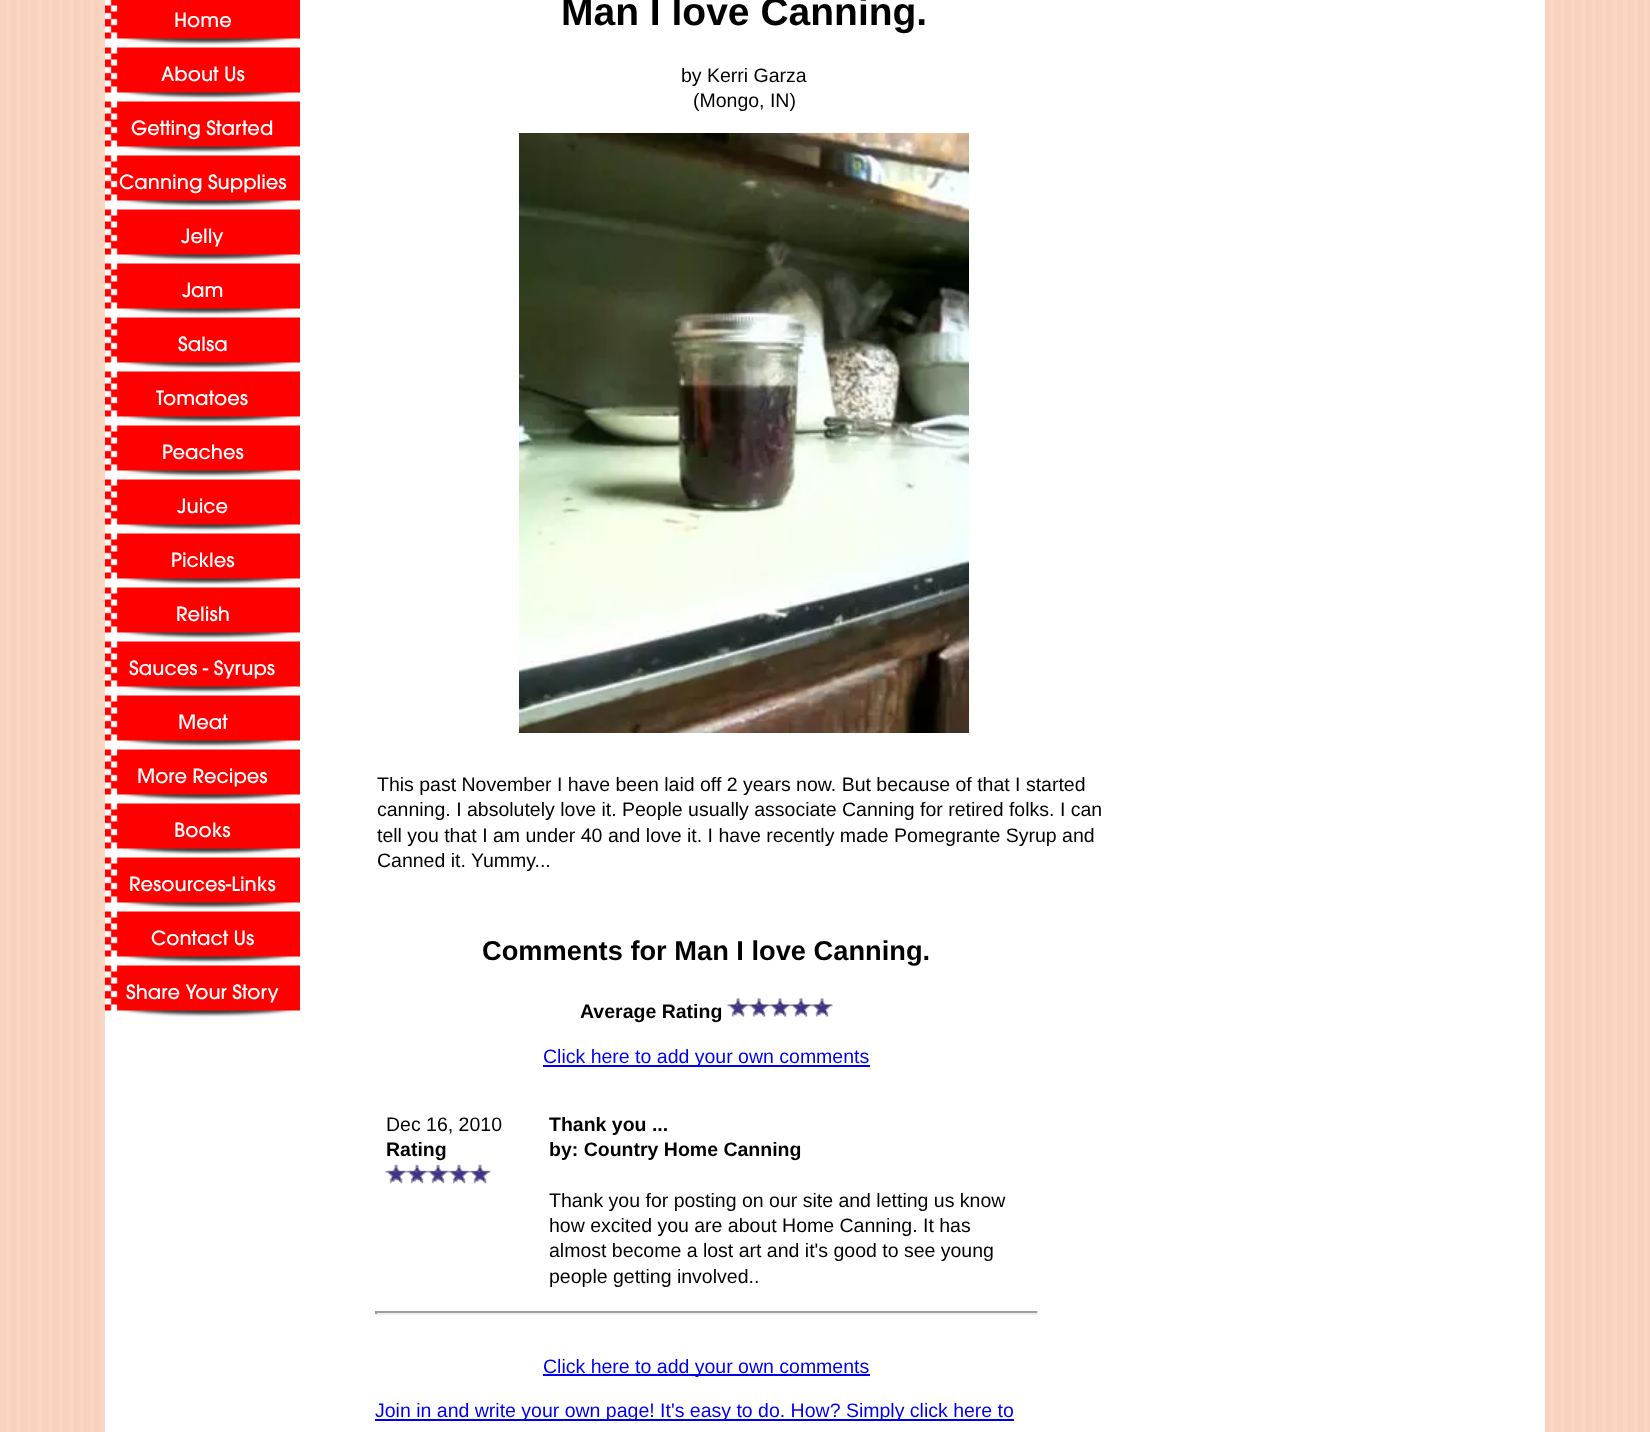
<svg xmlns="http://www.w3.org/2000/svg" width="1650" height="1432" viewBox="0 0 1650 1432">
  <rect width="100%" height="100%" fill="#fff"/>
  <image x="0" y="0" width="1650" height="1432" href="img/1.png"/>
  <path d="M105 0h1440v1432H105z" fill="#fff"/>
  <image x="105" y="0" width="195" height="45" href="img/2.png"/>
  <image x="105" y="47" width="195" height="52" href="img/3.png"/>
  <image x="105" y="101" width="195" height="52" href="img/3.png"/>
  <image x="105" y="155" width="195" height="52" href="img/3.png"/>
  <image x="105" y="209" width="195" height="52" href="img/3.png"/>
  <image x="105" y="263" width="195" height="52" href="img/3.png"/>
  <image x="105" y="317" width="195" height="52" href="img/3.png"/>
  <image x="105" y="371" width="195" height="52" href="img/3.png"/>
  <image x="105" y="425" width="195" height="52" href="img/3.png"/>
  <image x="105" y="479" width="195" height="52" href="img/3.png"/>
  <image x="105" y="533" width="195" height="52" href="img/3.png"/>
  <image x="105" y="587" width="195" height="52" href="img/3.png"/>
  <image x="105" y="641" width="195" height="52" href="img/3.png"/>
  <image x="105" y="695" width="195" height="52" href="img/3.png"/>
  <image x="105" y="749" width="195" height="52" href="img/3.png"/>
  <image x="105" y="803" width="195" height="52" href="img/3.png"/>
  <image x="105" y="857" width="195" height="52" href="img/3.png"/>
  <image x="105" y="911" width="195" height="52" href="img/3.png"/>
  <image x="105" y="965" width="195" height="52" href="img/3.png"/>
  <image x="519" y="133" width="450" height="600" href="img/4.png"/>
  <image x="727" y="998" width="22" height="19" href="img/5.png"/>
  <image x="748" y="998" width="22" height="19" href="img/6.png"/>
  <image x="769" y="998" width="22" height="19" href="img/7.png"/>
  <image x="790" y="998" width="22" height="19" href="img/7.png"/>
  <image x="811" y="998" width="22" height="19" href="img/7.png"/>
  <path d="M543 1065h327v2H543z" fill="#00e"/>
  <image x="385" y="1164" width="22" height="20" href="img/8.png"/>
  <image x="406" y="1164" width="22" height="20" href="img/9.png"/>
  <image x="427" y="1164" width="22" height="20" href="img/9.png"/>
  <image x="448" y="1164" width="22" height="20" href="img/10.png"/>
  <image x="469" y="1164" width="22" height="20" href="img/10.png"/>
  <path d="M375 1311h663v2H375z" fill="#9f9f9f"/>
  <path d="M1037 1311h2v3H1037z" fill="#eee"/>
  <path d="M375 1313h663v2H375z" fill="#eee"/>
  <path d="M375 1311h2v3H375z" fill="#9f9f9f"/>
  <path d="M543 1374h327v2H543z" fill="#00e"/>
  <path d="M375 1419h639v2H375z" fill="#00e"/>
  <g font-family="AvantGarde" font-size="19.5" fill="#fff">
    <text x="174" y="27">Home</text>
    <text x="161" y="81">About Us</text>
    <text x="131" y="135">Getting Started</text>
    <text x="119" y="189">Canning Supplies</text>
    <text x="181" y="243">Jelly</text>
    <text x="182" y="297">Jam</text>
    <text x="178" y="351">Salsa</text>
    <text x="156" y="405">Tomatoes</text>
    <text x="162" y="459">Peaches</text>
    <text x="177" y="513">Juice</text>
    <text x="171" y="567">Pickles</text>
    <text x="176" y="621">Relish</text>
    <text x="129" y="675">Sauces - Syrups</text>
    <text x="178" y="729">Meat</text>
    <text x="137" y="783">More Recipes</text>
    <text x="174" y="837">Books</text>
    <text x="129" y="891">Resources-Links</text>
    <text x="151" y="945">Contact Us</text>
    <text x="126" y="999">Share Your Story</text>
  </g>
  <text x="561" y="25" font-family="Liberation Sans" font-size="39" font-weight="bold" fill="#000">Man I love Canning.</text>
  <g font-family="Liberation Sans" font-size="19.5" fill="#000">
    <text x="681" y="82">by Kerri Garza</text>
    <text x="693" y="107">(Mongo, IN)</text>
    <text x="377" y="791">This past November I have been laid off 2 years now. But because of that I started</text>
    <text x="377" y="816">canning. I absolutely love it. People usually associate Canning for retired folks. I can</text>
    <text x="377" y="842">tell you that I am under 40 and love it. I have recently made Pomegrante Syrup and</text>
    <text x="377" y="867">Canned it. Yummy...</text>
  </g>
  <text x="482" y="960" font-family="Liberation Sans" font-size="27.25" font-weight="bold" fill="#000">Comments for Man I love Canning.</text>
  <text x="580" y="1018" font-family="Liberation Sans" font-size="19.5" font-weight="bold" fill="#000">Average Rating</text>
  <text x="543" y="1063" font-family="Liberation Sans" font-size="19.5" fill="#00e">Click here to add your own comments</text>
  <text x="386" y="1131" font-family="Liberation Sans" font-size="19.5" fill="#000">Dec 16, 2010</text>
  <g font-family="Liberation Sans" font-size="19.5" font-weight="bold" fill="#000">
    <text x="386" y="1156">Rating</text>
    <text x="549" y="1131">Thank you ...</text>
    <text x="549" y="1156">by: Country Home Canning</text>
  </g>
  <g font-family="Liberation Sans" font-size="19.5" fill="#000">
    <text x="549" y="1207">Thank you for posting on our site and letting us know</text>
    <text x="549" y="1232">how excited you are about Home Canning. It has</text>
    <text x="549" y="1257">almost become a lost art and it's good to see young</text>
    <text x="549" y="1283">people getting involved..</text>
  </g>
  <g font-family="Liberation Sans" font-size="19.5" fill="#00e">
    <text x="543" y="1373">Click here to add your own comments</text>
    <text x="375" y="1417">Join in and write your own page! It's easy to do. How? Simply click here to</text>
  </g>
</svg>
